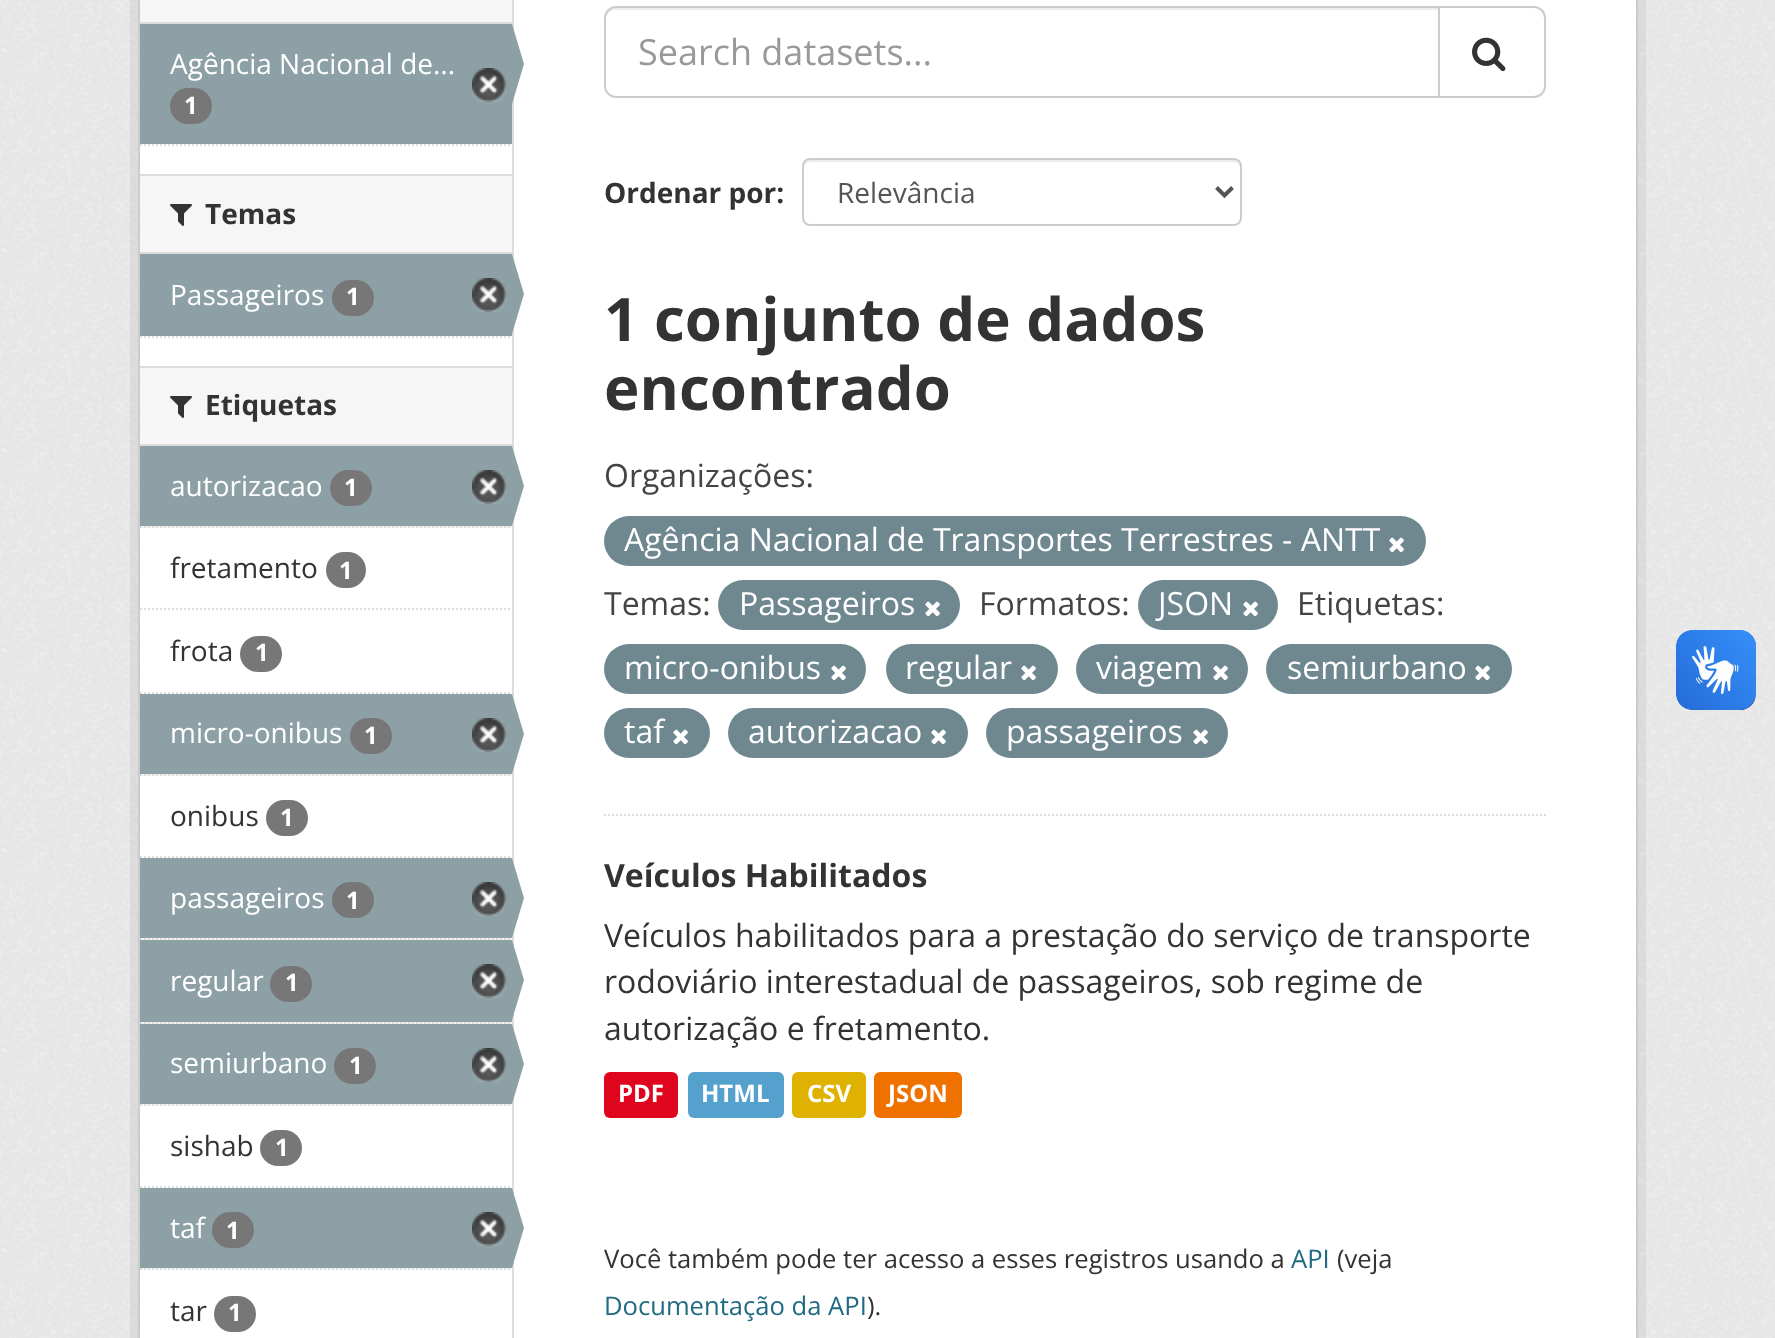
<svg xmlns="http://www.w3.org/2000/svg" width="1775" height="1338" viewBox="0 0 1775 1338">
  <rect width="100%" height="100%" fill="#eee"/>
  <image x="0" y="0" width="1775" height="1338" href="img/1.png"/>
  <path d="M134 -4h1508v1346H134z" fill="none" stroke="#0000000d" stroke-width="8"/>
  <path d="M139 -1h1498v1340H139z" fill="#fff" stroke="#ccc" stroke-width="2"/>
  <path d="M140 0h372v22H140z" fill="#f6f6f6"/>
  <path d="M140 22h372v2H140z" fill="#ddd"/>
  <path d="M140 24h372v120H140z" fill="#8ca0a6"/>
  <image x="472" y="68" width="34" height="34" href="img/2.png"/>
  <path d="M512 0h2v1338H512z" fill="#ddd"/>
  <path d="M512 104V24L524 64Z" fill="#8ca0a6"/>
  <rect x="170" y="88" width="42" height="36" rx="18" fill="#777"/>
  <path d="M140 145H512" fill="none" stroke="#ddd" stroke-width="2" stroke-dasharray="2 2"/>
  <path d="M140 176h372v76H140z" fill="#f6f6f6"/>
  <path d="M140 174h372v2H140z" fill="#ddd"/>
  <path d="M140 252h372v2H140z" fill="#ddd"/>
  <image x="170" y="204" width="22" height="22" href="img/3.png"/>
  <path d="M140 254h372v82H140z" fill="#8ca0a6"/>
  <rect x="332" y="280" width="42" height="36" rx="18" fill="#777"/>
  <image x="472" y="278" width="34" height="34" href="img/2.png"/>
  <path d="M512 334V254L524 294Z" fill="#8ca0a6"/>
  <path d="M140 337H512" fill="none" stroke="#ddd" stroke-width="2" stroke-dasharray="2 2"/>
  <path d="M140 368h372v76H140z" fill="#f6f6f6"/>
  <path d="M140 366h372v2H140z" fill="#ddd"/>
  <path d="M140 444h372v2H140z" fill="#ddd"/>
  <image x="170" y="396" width="22" height="22" href="img/3.png"/>
  <path d="M142 526h370v2H142z" fill="#f6f6f6"/>
  <path d="M140 527H512" fill="none" stroke="#ddd" stroke-width="2" stroke-dasharray="2 2"/>
  <path d="M140 446h372v80H140z" fill="#8ca0a6"/>
  <rect x="330" y="470" width="42" height="36" rx="18" fill="#777"/>
  <image x="472" y="470" width="34" height="34" href="img/2.png"/>
  <path d="M512 526V446L524 486Z" fill="#8ca0a6"/>
  <path d="M140 609H512" fill="none" stroke="#ddd" stroke-width="2" stroke-dasharray="2 2"/>
  <rect x="326" y="552" width="40" height="36" rx="18" fill="#777"/>
  <path d="M140 693H512" fill="none" stroke="#ddd" stroke-width="2" stroke-dasharray="2 2"/>
  <rect x="240" y="636" width="42" height="36" rx="18" fill="#777"/>
  <path d="M142 774h370v2H142z" fill="#f6f6f6"/>
  <path d="M140 775H512" fill="none" stroke="#ddd" stroke-width="2" stroke-dasharray="2 2"/>
  <path d="M140 694h372v80H140z" fill="#8ca0a6"/>
  <rect x="350" y="718" width="42" height="36" rx="18" fill="#777"/>
  <image x="472" y="718" width="34" height="34" href="img/2.png"/>
  <path d="M512 774V694L524 734Z" fill="#8ca0a6"/>
  <path d="M140 857H512" fill="none" stroke="#ddd" stroke-width="2" stroke-dasharray="2 2"/>
  <rect x="266" y="800" width="42" height="36" rx="18" fill="#777"/>
  <path d="M142 938h370v2H142z" fill="#f6f6f6"/>
  <path d="M140 939H512" fill="none" stroke="#ddd" stroke-width="2" stroke-dasharray="2 2"/>
  <path d="M140 858h372v80H140z" fill="#8ca0a6"/>
  <rect x="332" y="882" width="42" height="36" rx="18" fill="#777"/>
  <image x="472" y="882" width="34" height="34" href="img/2.png"/>
  <path d="M512 938V858L524 898Z" fill="#8ca0a6"/>
  <path d="M142 1022h370v2H142z" fill="#f6f6f6"/>
  <path d="M140 1023H512" fill="none" stroke="#ddd" stroke-width="2" stroke-dasharray="2 2"/>
  <path d="M140 940h372v82H140z" fill="#8ca0a6"/>
  <rect x="270" y="966" width="42" height="36" rx="18" fill="#777"/>
  <image x="472" y="964" width="34" height="34" href="img/2.png"/>
  <path d="M512 1020V940L524 980Z" fill="#8ca0a6"/>
  <path d="M142 1104h370v2H142z" fill="#f6f6f6"/>
  <path d="M140 1105H512" fill="none" stroke="#ddd" stroke-width="2" stroke-dasharray="2 2"/>
  <path d="M140 1024h372v80H140z" fill="#8ca0a6"/>
  <rect x="334" y="1048" width="42" height="36" rx="18" fill="#777"/>
  <image x="472" y="1048" width="34" height="34" href="img/2.png"/>
  <path d="M512 1104V1024L524 1064Z" fill="#8ca0a6"/>
  <path d="M140 1187H512" fill="none" stroke="#ddd" stroke-width="2" stroke-dasharray="2 2"/>
  <rect x="260" y="1130" width="42" height="36" rx="18" fill="#777"/>
  <path d="M142 1268h370v2H142z" fill="#f6f6f6"/>
  <path d="M140 1269H512" fill="none" stroke="#ddd" stroke-width="2" stroke-dasharray="2 2"/>
  <path d="M140 1188h372v80H140z" fill="#8ca0a6"/>
  <rect x="212" y="1212" width="42" height="36" rx="18" fill="#777"/>
  <image x="472" y="1212" width="34" height="34" href="img/2.png"/>
  <path d="M512 1268V1188L524 1228Z" fill="#8ca0a6"/>
  <rect x="214" y="1296" width="42" height="36" rx="18" fill="#777"/>
  <path d="M604 815H1546" fill="none" stroke="#ddd" stroke-width="2" stroke-dasharray="2 2"/>
  <path d="M616 10H1438V8H616C609 8 606 14 606 20C606 14 610 10 616 10Z" fill="#ececec"/>
  <path d="M616 7H1439V97H616C610 97 605 92 605 86V18C605 12 610 7 616 7Z" fill="none" stroke="#ccc" stroke-width="2"/>
  <path d="M1439 7H1534C1540 7 1545 12 1545 18V86C1545 92 1540 97 1534 97H1439Z" fill="#fff" stroke="#ccc" stroke-width="2"/>
  <image x="1472" y="37" width="34" height="35" href="img/4.png"/>
  <path d="M810 162H1234C1237 162 1240 165 1240 168V166C1240 163 1237 160 1234 160H810C807 160 804 163 804 166V168C804 165 807 162 810 162Z" fill="#ececec"/>
  <rect x="803" y="159" width="438" height="66" rx="7" fill="none" stroke="#ccc" stroke-width="2"/>
  <path d="M1216.5 187.5L1224.5 195.5L1232.5 187.5" fill="none" stroke="#555" stroke-width="4"/>
  <rect x="604" y="516" width="822" height="50" rx="25" fill="#6f8890"/>
  <image x="1389" y="537" width="15" height="16" href="img/5.png"/>
  <rect x="718" y="580" width="242" height="50" rx="25" fill="#6f8890"/>
  <image x="925" y="601" width="15" height="16" href="img/5.png"/>
  <rect x="1138" y="580" width="140" height="50" rx="25" fill="#6f8890"/>
  <image x="1243" y="601" width="15" height="16" href="img/5.png"/>
  <rect x="604" y="644" width="262" height="50" rx="25" fill="#6f8890"/>
  <image x="831" y="665" width="15" height="16" href="img/5.png"/>
  <rect x="886" y="644" width="172" height="50" rx="25" fill="#6f8890"/>
  <image x="1021" y="665" width="15" height="16" href="img/5.png"/>
  <rect x="1076" y="644" width="172" height="50" rx="25" fill="#6f8890"/>
  <image x="1213" y="665" width="15" height="16" href="img/5.png"/>
  <rect x="1266" y="644" width="246" height="50" rx="25" fill="#6f8890"/>
  <image x="1475" y="665" width="15" height="16" href="img/5.png"/>
  <rect x="604" y="708" width="106" height="50" rx="25" fill="#6f8890"/>
  <image x="673" y="729" width="15" height="16" href="img/5.png"/>
  <rect x="728" y="708" width="240" height="50" rx="25" fill="#6f8890"/>
  <image x="931" y="729" width="15" height="16" href="img/5.png"/>
  <rect x="986" y="708" width="242" height="50" rx="25" fill="#6f8890"/>
  <image x="1193" y="729" width="15" height="16" href="img/5.png"/>
  <rect x="604" y="1072" width="74" height="46" rx="6" fill="#e0051e"/>
  <rect x="688" y="1072" width="96" height="46" rx="6" fill="#55a1ce"/>
  <rect x="792" y="1072" width="74" height="46" rx="6" fill="#dfb100"/>
  <rect x="874" y="1072" width="88" height="46" rx="6" fill="#ef7100"/>
  <image x="1676" y="630" width="80" height="80" href="img/6.png"/>
  <image x="1676" y="630" width="80" height="80" href="img/7.png"/>
  <text x="170" y="74" font-family="Open Sans" font-size="28" fill="#fff">Agência Nacional de...</text>
  <text x="184" y="114" font-family="Open Sans" font-size="24" font-weight="bold" fill="#fff">1</text>
  <text x="205" y="224" font-family="Open Sans" font-size="28" font-weight="bold" fill="#333">Temas</text>
  <text x="170" y="305" font-family="Open Sans" font-size="28" fill="#fff">Passageiros</text>
  <text x="346" y="305" font-family="Open Sans" font-size="24" font-weight="bold" fill="#fff">1</text>
  <text x="205" y="415" font-family="Open Sans" font-size="28" font-weight="bold" fill="#333">Etiquetas</text>
  <text x="170" y="496" font-family="Open Sans" font-size="28" fill="#fff">autorizacao</text>
  <text x="344" y="496" font-family="Open Sans" font-size="24" font-weight="bold" fill="#fff">1</text>
  <text x="170" y="578" font-family="Open Sans" font-size="28" fill="#333">fretamento</text>
  <text x="339" y="579" font-family="Open Sans" font-size="24" font-weight="bold" fill="#fff">1</text>
  <text x="170" y="661" font-family="Open Sans" font-size="28" fill="#333">frota</text>
  <text x="255" y="661" font-family="Open Sans" font-size="24" font-weight="bold" fill="#fff">1</text>
  <text x="170" y="743" font-family="Open Sans" font-size="28" fill="#fff">micro-onibus</text>
  <text x="364" y="744" font-family="Open Sans" font-size="24" font-weight="bold" fill="#fff">1</text>
  <text x="170" y="826" font-family="Open Sans" font-size="28" fill="#333">onibus</text>
  <text x="280" y="826" font-family="Open Sans" font-size="24" font-weight="bold" fill="#fff">1</text>
  <text x="170" y="908" font-family="Open Sans" font-size="28" fill="#fff">passageiros</text>
  <text x="346" y="909" font-family="Open Sans" font-size="24" font-weight="bold" fill="#fff">1</text>
  <text x="170" y="991" font-family="Open Sans" font-size="28" fill="#fff">regular</text>
  <text x="285" y="991" font-family="Open Sans" font-size="24" font-weight="bold" fill="#fff">1</text>
  <text x="170" y="1073" font-family="Open Sans" font-size="28" fill="#fff">semiurbano</text>
  <text x="349" y="1074" font-family="Open Sans" font-size="24" font-weight="bold" fill="#fff">1</text>
  <text x="170" y="1156" font-family="Open Sans" font-size="28" fill="#333">sishab</text>
  <text x="275" y="1156" font-family="Open Sans" font-size="24" font-weight="bold" fill="#fff">1</text>
  <text x="170" y="1238" font-family="Open Sans" font-size="28" fill="#fff">taf</text>
  <text x="226" y="1239" font-family="Open Sans" font-size="24" font-weight="bold" fill="#fff">1</text>
  <text x="170" y="1321" font-family="Open Sans" font-size="28" fill="#333">tar</text>
  <text x="228" y="1321" font-family="Open Sans" font-size="24" font-weight="bold" fill="#fff">1</text>
  <text x="638" y="65" font-family="Open Sans" font-size="36" fill="#999">Search datasets...</text>
  <text x="604" y="203" font-family="Open Sans" font-size="28" font-weight="bold" fill="#333">Ordenar por:</text>
  <text x="837" y="203" font-family="Open Sans" font-size="28" fill="#555">Relevância</text>
  <g font-family="Open Sans" font-size="60" font-weight="bold" fill="#333">
    <text x="604" y="341">1 conjunto de dados</text>
    <text x="604" y="410">encontrado</text>
  </g>
  <text x="604" y="487" font-family="Open Sans" font-size="32" fill="#444">Organizações:</text>
  <text x="624" y="551" font-family="Open Sans" font-size="32" fill="#fff">Agência Nacional de Transportes Terrestres - ANTT</text>
  <text x="604" y="615" font-family="Open Sans" font-size="32" fill="#444">Temas:</text>
  <text x="739" y="615" font-family="Open Sans" font-size="32" fill="#fff">Passageiros</text>
  <text x="979" y="615" font-family="Open Sans" font-size="32" fill="#444">Formatos:</text>
  <text x="1158" y="615" font-family="Open Sans" font-size="32" fill="#fff">JSON</text>
  <text x="1297" y="615" font-family="Open Sans" font-size="32" fill="#444">Etiquetas:</text>
  <g font-family="Open Sans" font-size="32" fill="#fff">
    <text x="624" y="679">micro-onibus</text>
    <text x="905" y="679">regular</text>
    <text x="1096" y="679">viagem</text>
    <text x="1287" y="679">semiurbano</text>
    <text x="624" y="743">taf</text>
    <text x="748" y="743">autorizacao</text>
    <text x="1006" y="743">passageiros</text>
  </g>
  <text x="604" y="887" font-family="Open Sans" font-size="32" font-weight="bold" fill="#333">Veículos Habilitados</text>
  <g font-family="Open Sans" font-size="32" fill="#333">
    <text x="604" y="947">Veículos habilitados para a prestação do serviço de transporte</text>
    <text x="604" y="993">rodoviário interestadual de passageiros, sob regime de</text>
    <text x="604" y="1040">autorização e fretamento.</text>
  </g>
  <g font-family="Open Sans" font-size="24" font-weight="bold" fill="#fff">
    <text x="618" y="1102">PDF</text>
    <text x="701" y="1102">HTML</text>
    <text x="807" y="1102">CSV</text>
    <text x="888" y="1102">JSON</text>
  </g>
  <text x="604" y="1268" font-family="Open Sans" font-size="25.6" fill="#333">Você também pode ter acesso a esses registros usando a</text>
  <text x="1291" y="1268" font-family="Open Sans" font-size="25.6" fill="#206b82">API</text>
  <text x="1337" y="1268" font-family="Open Sans" font-size="25.6" fill="#333">(veja</text>
  <text x="604" y="1315" font-family="Open Sans" font-size="25.6" fill="#206b82">Documentação da API</text>
  <text x="867" y="1315" font-family="Open Sans" font-size="25.6" fill="#333">).</text>
</svg>
